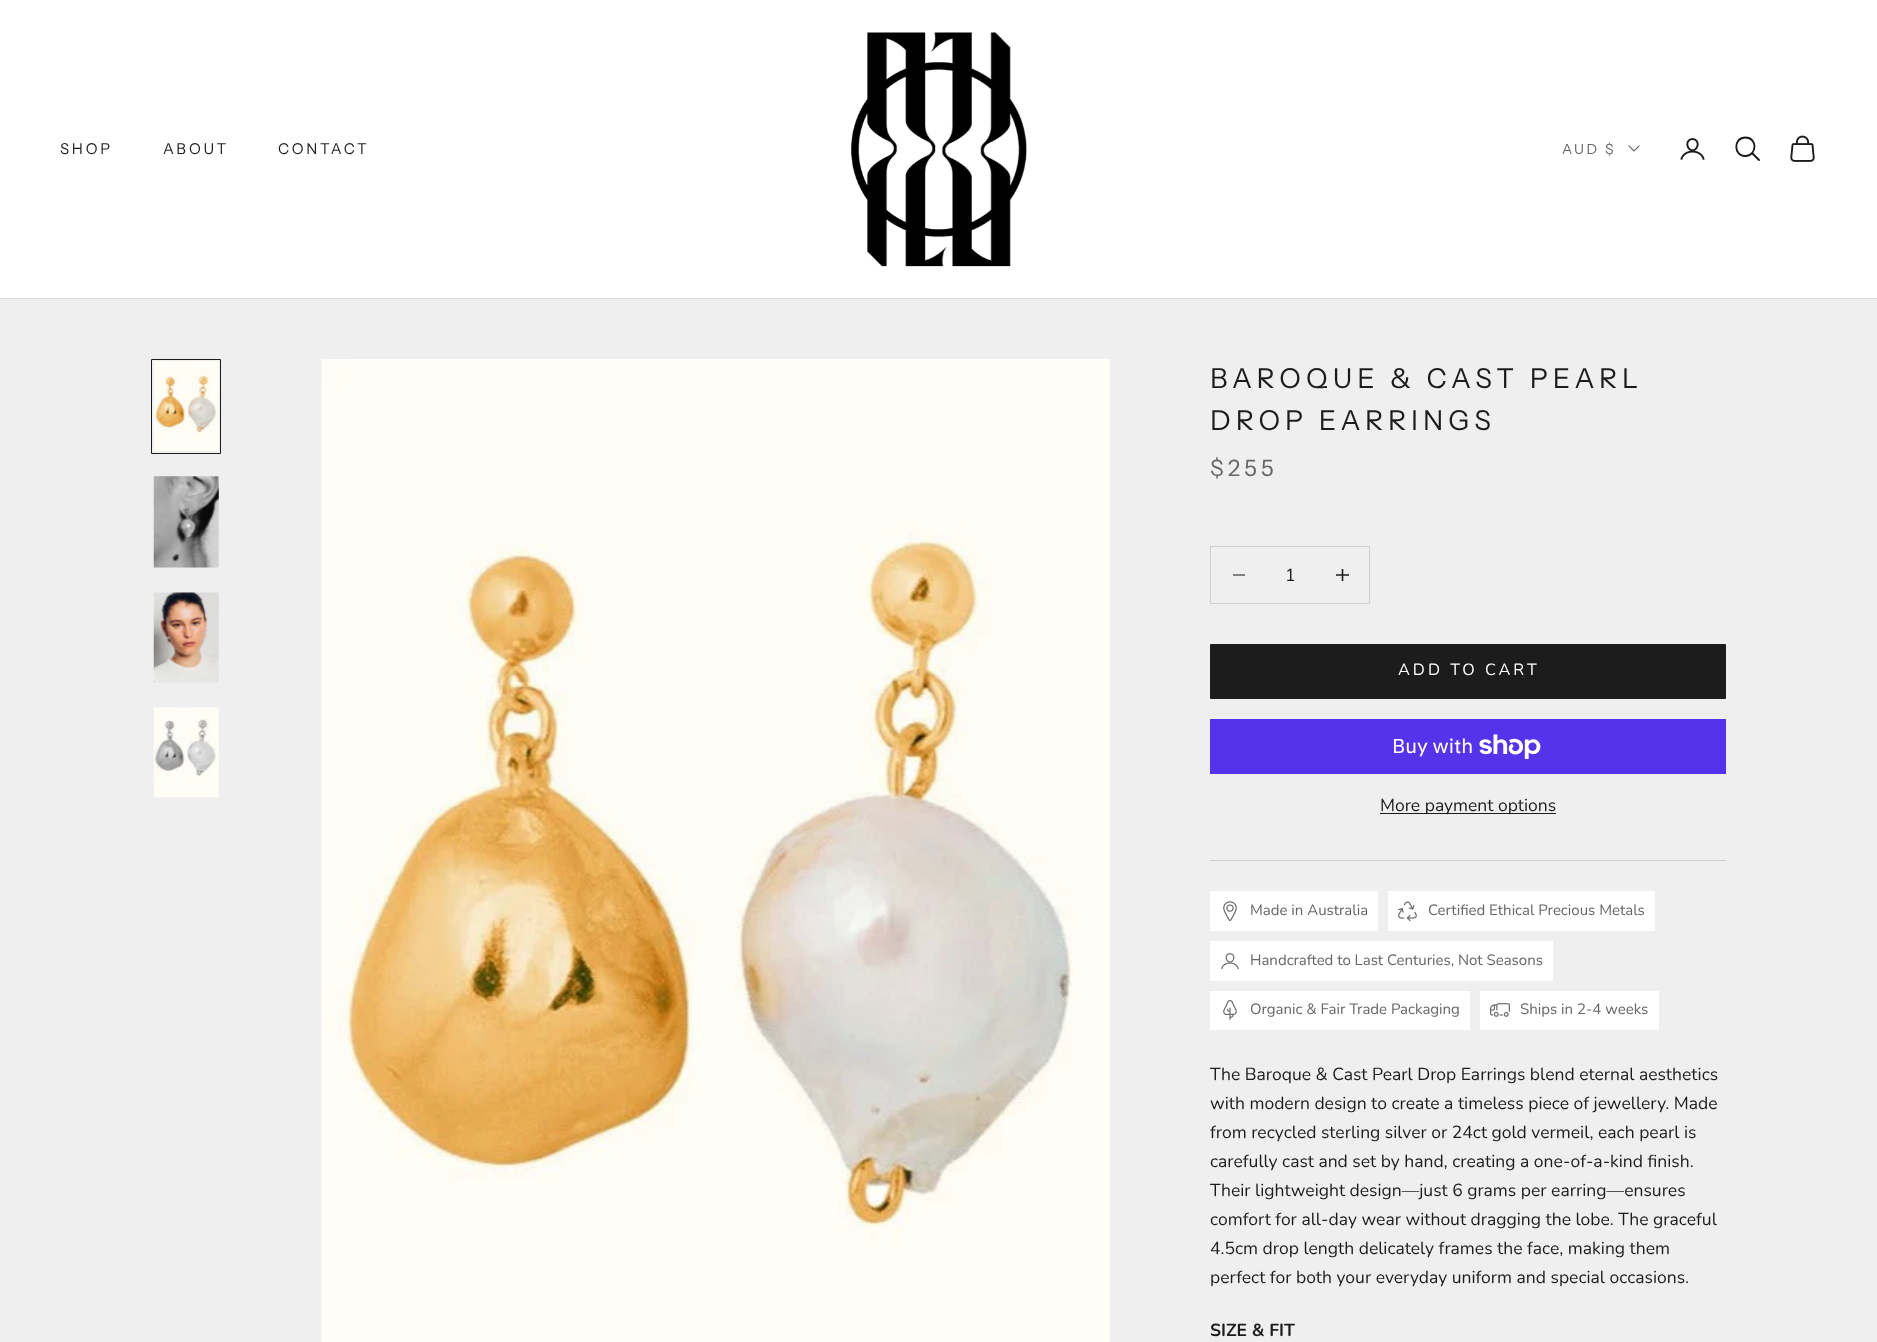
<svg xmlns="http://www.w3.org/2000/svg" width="1877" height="1342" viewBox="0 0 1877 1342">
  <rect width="100%" height="100%" fill="#efefef"/>
  <path d="M0 0h1877v298H0z" fill="#fff"/>
  <path d="M0 298h1877v1H0z" fill="#ddd"/>
  <image x="851" y="32" width="176" height="235" href="img/1.png"/>
  <path d="M1629 146L1634 151L1639 146" fill="none" stroke="#6b6b6b" stroke-width="1.2" stroke-linecap="square"/>
  <image x="1680" y="138" width="25" height="22" href="img/2.png"/>
  <path d="M1745.5 137.5C1733 137.5 1733.5 156.5 1745.5 156C1757.5 155.5 1757.5 137.5 1745.5 137.5Z" fill="none" stroke="#1c1c1c" stroke-width="1.9"/>
  <path d="M1752.5 153.5L1759 160" fill="none" stroke="#1c1c1c" stroke-width="1.9" stroke-linecap="round"/>
  <image x="1790" y="135" width="25" height="27" href="img/3.png"/>
  <path d="M151.5 359.5h69v94H151.5z" fill="none" stroke="#1c1c1c"/>
  <image x="153" y="361" width="66" height="91" href="img/4.png"/>
  <image x="153" y="476" width="66" height="92" href="img/5.png"/>
  <image x="153" y="592" width="66" height="91" href="img/6.png"/>
  <image x="153" y="707" width="66" height="91" href="img/7.png"/>
  <image x="321" y="359" width="789" height="983" href="img/8.png"/>
  <path d="M1210.5 546.5h159v57H1210.5z" fill="none" stroke="#cfcfcf"/>
  <path d="M1233 574h12v2H1233z" fill="#818181"/>
  <path d="M1342.5 569V581M1336 575H1349" fill="none" stroke="#1c1c1c" stroke-width="1.6"/>
  <path d="M1210.5 644.5h515v54H1210.5z" fill="#1c1c1c" stroke="#1c1c1c"/>
  <path d="M1210 719h516v55H1210z" fill="#5433eb"/>
  <image x="1479" y="734" width="62" height="25" href="img/9.png"/>
  <path d="M1380 813h176v1H1380z" fill="#1c1c1c"/>
  <path d="M1210 860h516v1H1210z" fill="#cfcfcf"/>
  <path d="M1210 891h168v40H1210z" fill="#fff"/>
  <image x="1223" y="901" width="14" height="20" href="img/10.png"/>
  <path d="M1388 891h267v40H1388z" fill="#fff"/>
  <image x="1398" y="901" width="19" height="20" href="img/11.png"/>
  <path d="M1210 941h343v40H1210z" fill="#fff"/>
  <image x="1221" y="953" width="18" height="17" href="img/12.png"/>
  <path d="M1210 991h260v39H1210z" fill="#fff"/>
  <image x="1223" y="1000" width="14" height="20" href="img/13.png"/>
  <path d="M1480 991h179v39H1480z" fill="#fff"/>
  <image x="1490" y="1003" width="20" height="14" href="img/14.png"/>
  <g font-family="Instrument Sans" font-size="15" letter-spacing="2.75" fill="#1c1c1c">
    <text x="60" y="154">SHOP</text>
    <text x="163" y="154">ABOUT</text>
    <text x="278" y="154">CONTACT</text>
  </g>
  <text x="1562" y="154" font-family="Instrument Sans" font-size="14" letter-spacing="2.5" fill="#666">AUD $</text>
  <g font-family="Instrument Sans" font-size="27.5" letter-spacing="5" fill="#1c1c1c">
    <text x="1210" y="388">BAROQUE &amp; CAST PEARL</text>
    <text x="1210" y="430">DROP EARRINGS</text>
  </g>
  <text x="1210" y="476" font-family="Instrument Sans" font-size="22.5" letter-spacing="4" fill="#666">$255</text>
  <text x="1285" y="581" font-family="Nunito" font-size="17.5" fill="#1c1c1c">1</text>
  <text x="1398" y="675" font-family="Nunito" font-size="16.25" letter-spacing="3" fill="#fff">ADD TO CART</text>
  <text x="1392" y="753" font-family="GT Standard" font-size="20" fill="#fff">Buy with</text>
  <text x="1380" y="811" font-family="Nunito" font-size="17.5" fill="#1c1c1c">More payment options</text>
  <g font-family="Nunito" font-size="15" fill="#666">
    <text x="1250" y="915">Made in Australia</text>
    <text x="1428" y="915">Certified Ethical Precious Metals</text>
    <text x="1250" y="965">Handcrafted to Last Centuries, Not Seasons</text>
    <text x="1250" y="1014">Organic &amp; Fair Trade Packaging</text>
    <text x="1520" y="1014">Ships in 2-4 weeks</text>
  </g>
  <g font-family="Nunito" font-size="17.5" fill="#1c1c1c">
    <text x="1210" y="1080">The Baroque &amp; Cast Pearl Drop Earrings blend eternal aesthetics</text>
    <text x="1210" y="1109">with modern design to create a timeless piece of jewellery. Made</text>
    <text x="1210" y="1138">from recycled sterling silver or 24ct gold vermeil, each pearl is</text>
    <text x="1210" y="1167">carefully cast and set by hand, creating a one-of-a-kind finish.</text>
    <text x="1210" y="1196">Their lightweight design—just 6 grams per earring—ensures</text>
    <text x="1210" y="1225">comfort for all-day wear without dragging the lobe. The graceful</text>
    <text x="1210" y="1254">4.5cm drop length delicately frames the face, making them</text>
    <text x="1210" y="1283">perfect for both your everyday uniform and special occasions.</text>
  </g>
  <text x="1210" y="1336" font-family="Nunito" font-size="17.5" font-weight="bold" fill="#1c1c1c">SIZE &amp; FIT</text>
</svg>
